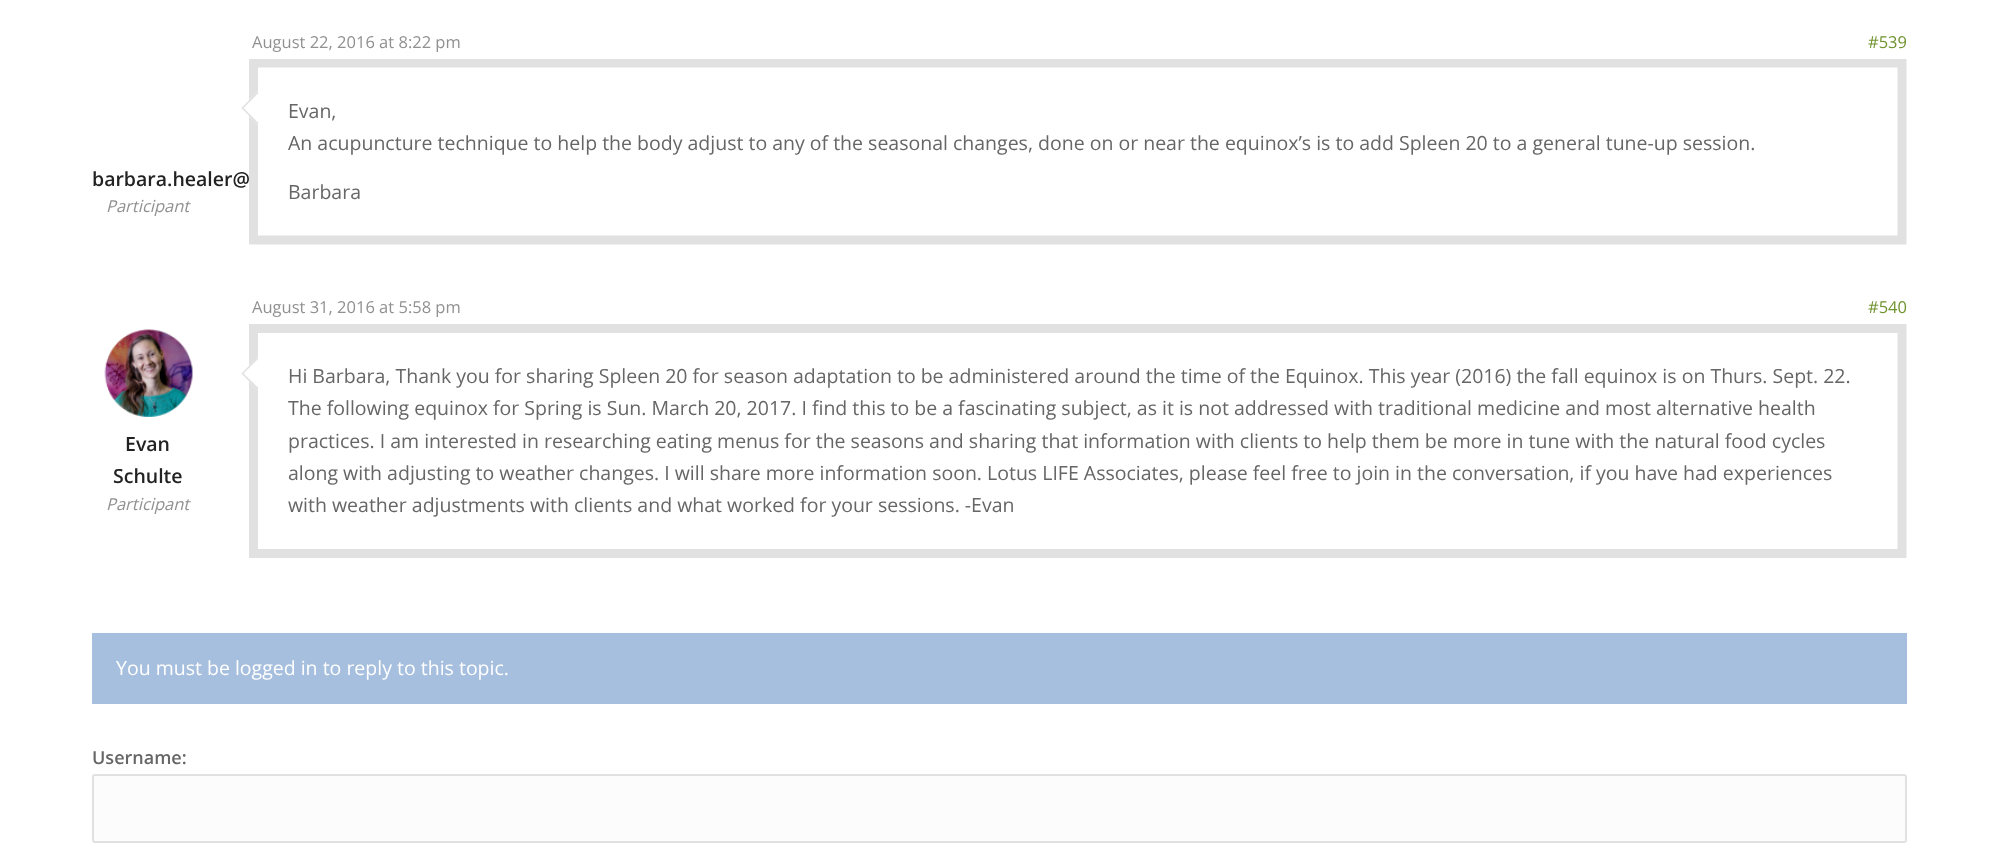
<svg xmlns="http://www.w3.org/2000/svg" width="1998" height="859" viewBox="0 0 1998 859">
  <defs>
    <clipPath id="clip1"><path d="M92 59h1815v231H92z"/></clipPath>
  </defs>
  <rect width="100%" height="100%" fill="#fff"/>
  <g clip-path="url(#clip1)">
    <path d="M253.5 63H1902V240H253.5Z" fill="none" stroke="#e1e1e1" stroke-width="9"/>
  </g>
  <path d="M257 92L273 108L257 124L241.5 108Z" fill="#fff"/>
  <path d="M242.5 107L258.5 123L257 124L241.5 108Z" fill="#e1e1e1"/>
  <path d="M257 92L258.5 93L242.5 109L241.5 108Z" fill="#e1e1e1"/>
  <path d="M253.5 328.5H1902V553.5H253.5Z" fill="none" stroke="#e1e1e1" stroke-width="9"/>
  <path d="M257 357.5L273 373.5L257 389.5L241.5 373.5Z" fill="#fff"/>
  <path d="M242.5 372.5L258.5 388L257 389.5L241.5 373.5Z" fill="#e1e1e1"/>
  <path d="M257 357.5L258.5 358.5L242.5 374.5L241.5 373.5Z" fill="#e1e1e1"/>
  <image x="104" y="329" width="89" height="88" href="img/1.png"/>
  <path d="M92 633h1815v71H92z" fill="#a6bfde"/>
  <rect x="93" y="775" width="1813" height="67" rx="2" fill="#fcfcfc" stroke="#e1e1e1" stroke-width="2"/>
  <text x="252" y="48" font-family="Open Sans" font-size="16.5" fill="#919191">August 22, 2016 at 8:22 pm</text>
  <text x="1868" y="48" font-family="Open Sans" font-size="16.5" fill="#719430">#539</text>
  <text x="92" y="186" font-family="Open Sans" font-size="19.5" font-weight="600" fill="#222">barbara.healer@</text>
  <text x="106" y="212" font-family="Open Sans" font-size="16.5" font-style="italic" fill="#919191">Participant</text>
  <g font-family="Open Sans" font-size="19.5" fill="#666">
    <text x="288" y="118">Evan,</text>
    <text x="288" y="150">An acupuncture technique to help the body adjust to any of the seasonal changes, done on or near the equinox’s is to add Spleen 20 to a general tune-up session.</text>
    <text x="288" y="199">Barbara</text>
  </g>
  <text x="252" y="313" font-family="Open Sans" font-size="16.5" fill="#919191">August 31, 2016 at 5:58 pm</text>
  <text x="1868" y="313" font-family="Open Sans" font-size="16.5" fill="#719430">#540</text>
  <g font-family="Open Sans" font-size="19.5" font-weight="600" fill="#222">
    <text x="125" y="451">Evan</text>
    <text x="113" y="483">Schulte</text>
  </g>
  <text x="106" y="510" font-family="Open Sans" font-size="16.5" font-style="italic" fill="#919191">Participant</text>
  <g font-family="Open Sans" font-size="19.5" fill="#666">
    <text x="288" y="383">Hi Barbara, Thank you for sharing Spleen 20 for season adaptation to be administered around the time of the Equinox. This year (2016) the fall equinox is on Thurs. Sept. 22.</text>
    <text x="288" y="415">The following equinox for Spring is Sun. March 20, 2017. I find this to be a fascinating subject, as it is not addressed with traditional medicine and most alternative health</text>
    <text x="288" y="448">practices. I am interested in researching eating menus for the seasons and sharing that information with clients to help them be more in tune with the natural food cycles</text>
    <text x="288" y="480">along with adjusting to weather changes. I will share more information soon. Lotus LIFE Associates, please feel free to join in the conversation, if you have had experiences</text>
    <text x="288" y="512">with weather adjustments with clients and what worked for your sessions. -Evan</text>
  </g>
  <text x="116" y="675" font-family="Open Sans" font-size="19.5" fill="#fff">You must be logged in to reply to this topic.</text>
  <text x="92" y="764" font-family="Open Sans" font-size="18" font-weight="600" fill="#666">Username:</text>
</svg>
